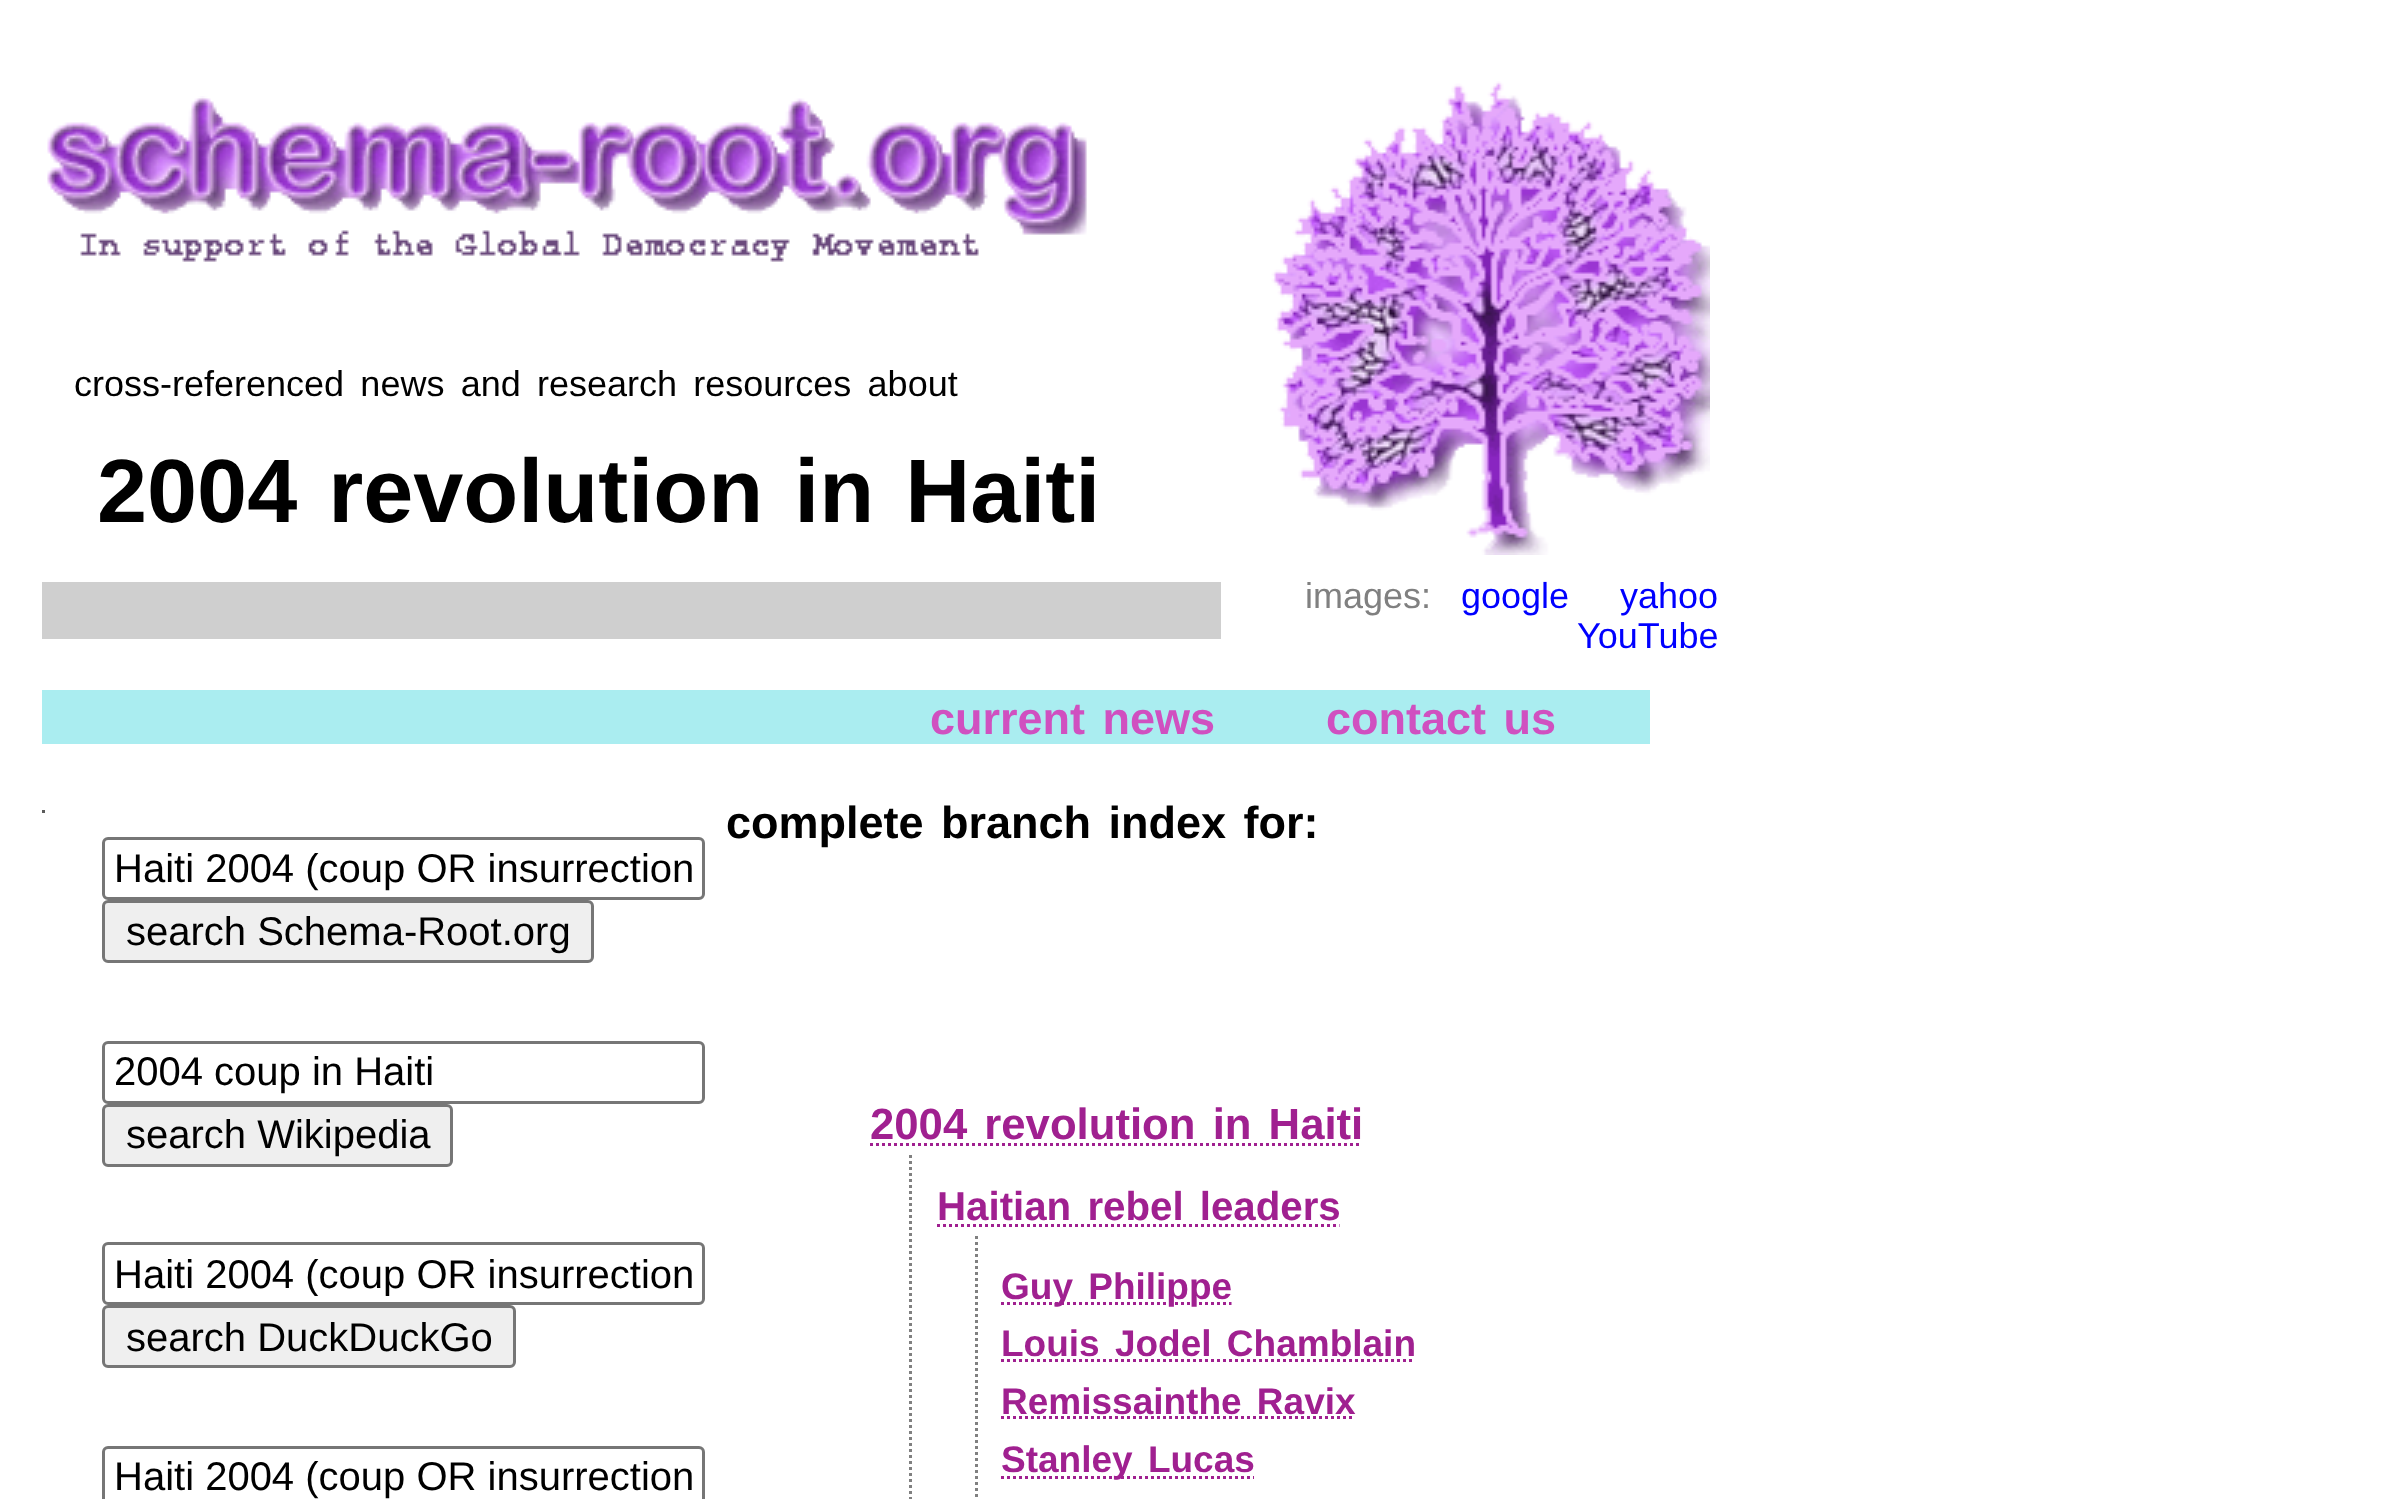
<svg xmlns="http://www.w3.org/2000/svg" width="2399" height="1499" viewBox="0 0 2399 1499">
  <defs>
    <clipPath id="clip1"><path d="M114 1251h579v45H114z"/></clipPath>
  </defs>
  <rect width="100%" height="100%" fill="#fff"/>
  <image x="47" y="96" width="1040" height="166" href="img/1.png"/>
  <path d="M42 582h1179v57H42z" fill="#cfcfcf"/>
  <image x="1271" y="81" width="439" height="474" href="img/2.png"/>
  <path d="M42 690h1608v54H42z" fill="#aaedf0"/>
  <rect x="103.5" y="838.5" width="600" height="60" rx="4.5" fill="none" stroke="#767676" stroke-width="3"/>
  <rect x="103.5" y="901.5" width="489" height="60" rx="4.5" fill="#efefef" stroke="#767676" stroke-width="3"/>
  <rect x="103.5" y="1042.5" width="600" height="60" rx="4.5" fill="none" stroke="#767676" stroke-width="3"/>
  <rect x="103.5" y="1105.5" width="348" height="60" rx="4.5" fill="#efefef" stroke="#767676" stroke-width="3"/>
  <rect x="103.5" y="1243.5" width="600" height="60" rx="4.5" fill="none" stroke="#767676" stroke-width="3"/>
  <rect x="103.5" y="1306.5" width="411" height="60" rx="4.5" fill="#efefef" stroke="#767676" stroke-width="3"/>
  <rect x="103.5" y="1447.5" width="600" height="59" rx="4.5" fill="none" stroke="#767676" stroke-width="3"/>
  <path d="M42 810h3v3H42z" fill="#5b5b5b"/>
  <path d="M870 1144.5H1362" fill="none" stroke="#a02090" stroke-width="3" stroke-dasharray="3 3"/>
  <path d="M910.5 1155V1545" fill="none" stroke="#808080" stroke-width="3" stroke-dasharray="3 3"/>
  <path d="M937 1225.5H1339.5" fill="none" stroke="#a02090" stroke-width="3" stroke-dasharray="3 3"/>
  <path d="M976.5 1236V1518" fill="none" stroke="#808080" stroke-width="3" stroke-dasharray="3 3"/>
  <path d="M1001 1303.5H1231.5" fill="none" stroke="#a02090" stroke-width="3" stroke-dasharray="3 3"/>
  <path d="M1001 1360.5H1414.5" fill="none" stroke="#a02090" stroke-width="3" stroke-dasharray="3 3"/>
  <path d="M1001 1417.5H1354.5" fill="none" stroke="#a02090" stroke-width="3" stroke-dasharray="3 3"/>
  <path d="M1001 1477.5H1254" fill="none" stroke="#a02090" stroke-width="3" stroke-dasharray="3 3"/>
  <text x="74" y="396" word-spacing="6.25" font-family="Liberation Sans" font-size="36" fill="#000">cross-referenced news and research resources about</text>
  <text x="97" y="522" word-spacing="6" font-family="Liberation Sans" font-size="90" font-weight="bold" fill="#000">2004 revolution in Haiti</text>
  <text x="1305" y="608" font-family="Liberation Sans" font-size="36" fill="#808080">images:</text>
  <g font-family="Liberation Sans" font-size="36" fill="#00f">
    <text x="1461" y="608">google</text>
    <text x="1620" y="608">yahoo</text>
    <text x="1577" y="648">YouTube</text>
  </g>
  <g font-family="Liberation Sans" font-size="45" font-weight="bold" fill="#d050c0">
    <text x="930" y="734" word-spacing="5">current news</text>
    <text x="1326" y="734" word-spacing="5">contact us</text>
  </g>
  <g font-family="Liberation Sans" font-size="40" fill="#000">
    <text x="114" y="882">Haiti 2004 (coup OR insurrection</text>
    <text x="126" y="945">search Schema-Root.org</text>
    <text x="114" y="1085">2004 coup in Haiti</text>
    <text x="126" y="1148">search Wikipedia</text>
  </g>
  <g clip-path="url(#clip1)">
    <text x="114" y="1288" font-family="Liberation Sans" font-size="40" fill="#000">Haiti 2004 (coup OR insurrection</text>
  </g>
  <g font-family="Liberation Sans" font-size="40" fill="#000">
    <text x="126" y="1351">search DuckDuckGo</text>
    <text x="114" y="1490">Haiti 2004 (coup OR insurrection</text>
  </g>
  <text x="726" y="838" word-spacing="5" font-family="Liberation Sans" font-size="45" font-weight="bold" fill="#000">complete branch index for:</text>
  <text x="870" y="1139" word-spacing="5" font-family="Liberation Sans" font-size="43.7" font-weight="bold" fill="#a02090">2004 revolution in Haiti</text>
  <text x="937" y="1220" word-spacing="5" font-family="Liberation Sans" font-size="40.25" font-weight="bold" fill="#a02090">Haitian rebel leaders</text>
  <g font-family="Liberation Sans" font-size="37" font-weight="bold" fill="#a02090">
    <text x="1001" y="1299" word-spacing="5">Guy Philippe</text>
    <text x="1001" y="1356" word-spacing="5">Louis Jodel Chamblain</text>
    <text x="1001" y="1414" word-spacing="5">Remissainthe Ravix</text>
    <text x="1001" y="1472" word-spacing="5">Stanley Lucas</text>
  </g>
</svg>
